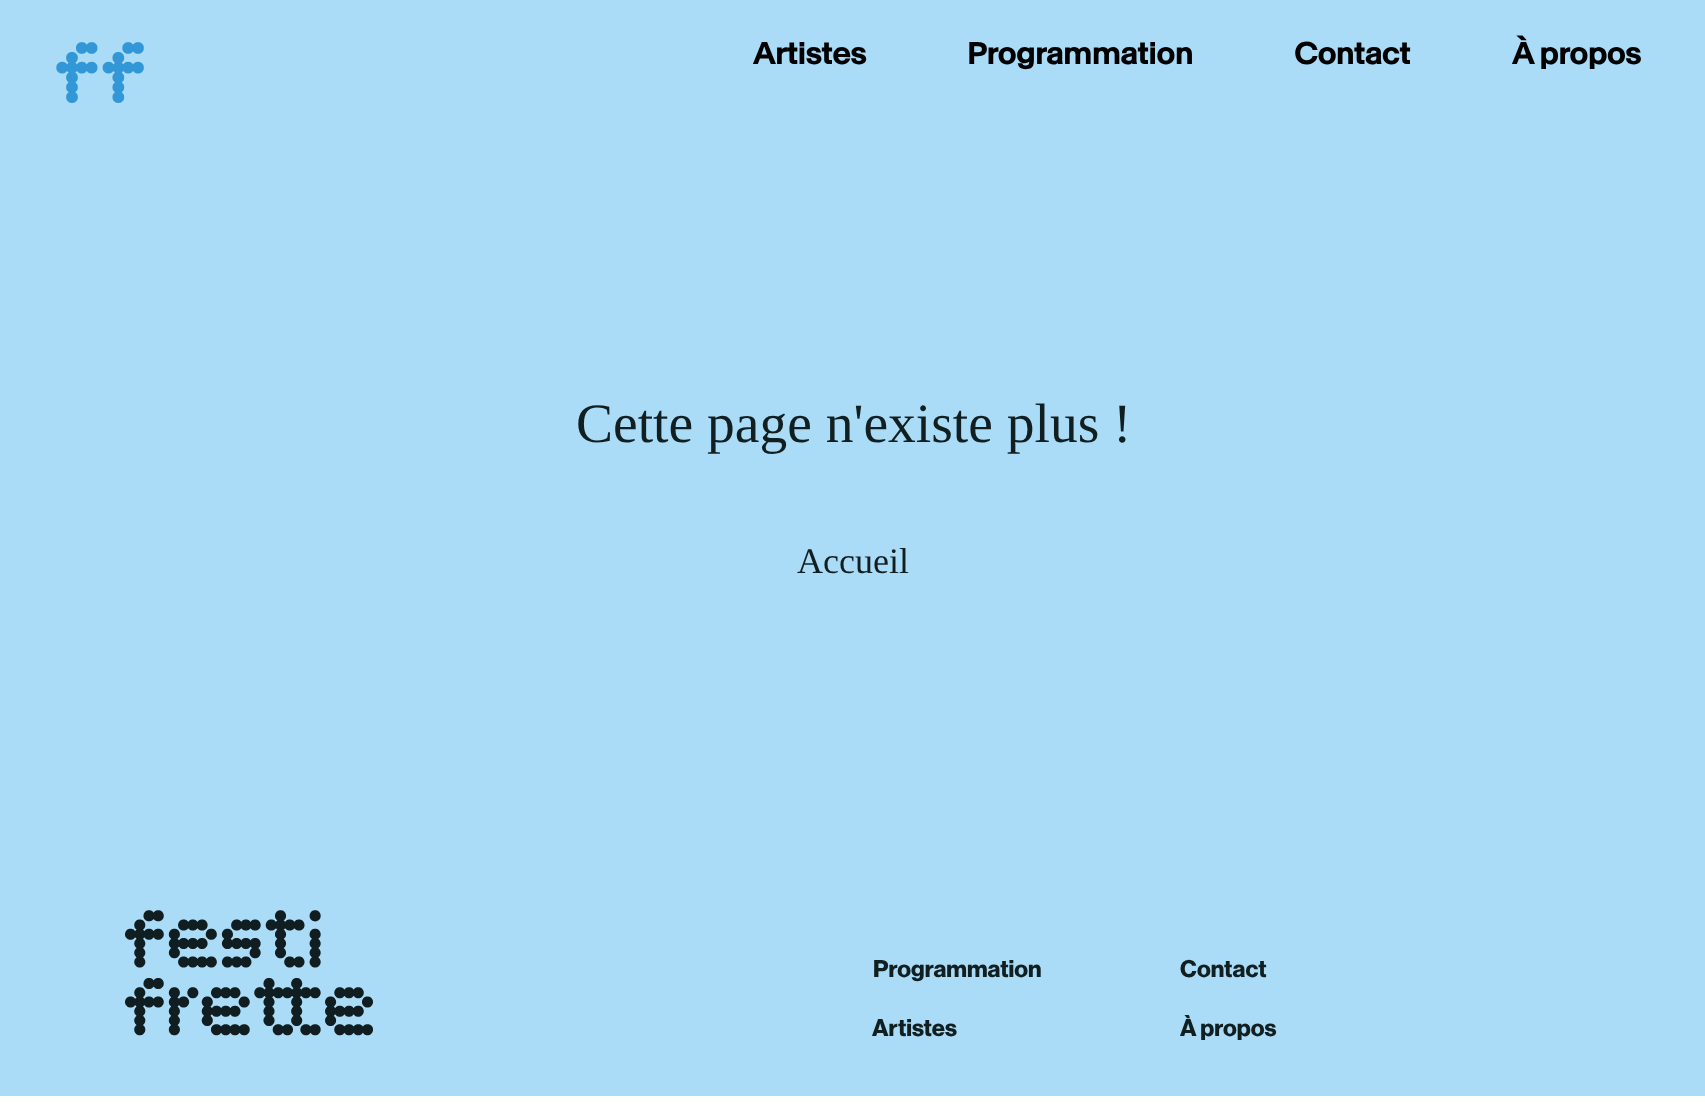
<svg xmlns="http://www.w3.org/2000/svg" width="1705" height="1115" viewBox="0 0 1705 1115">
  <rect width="100%" height="100%" fill="#fff"/>
  <path d="M0 0h1705v1096H0z" fill="#aadbf7"/>
  <image x="56" y="42" width="88" height="61" href="img/1.png"/>
  <image x="125" y="910" width="248" height="126" href="img/2.png"/>
  <g font-family="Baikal" font-size="30" font-weight="bold" fill="#000">
    <text x="753" y="64">Artistes</text>
    <text x="967" y="64">Programmation</text>
    <text x="1294" y="64">Contact</text>
    <text x="1512" y="64">À propos</text>
  </g>
  <text x="576" y="442" font-family="Liberation Serif" font-size="55.5" fill="#111f21">Cette page n'existe plus !</text>
  <text x="797" y="573" font-family="Liberation Serif" font-size="36" fill="#111f21">Accueil</text>
  <g font-family="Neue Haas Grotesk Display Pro" font-size="23.75" font-weight="bold" fill="#111f21">
    <text x="873" y="977">Programmation</text>
    <text x="1180" y="977">Contact</text>
    <text x="872" y="1036">Artistes</text>
    <text x="1180" y="1036">À propos</text>
  </g>
</svg>
